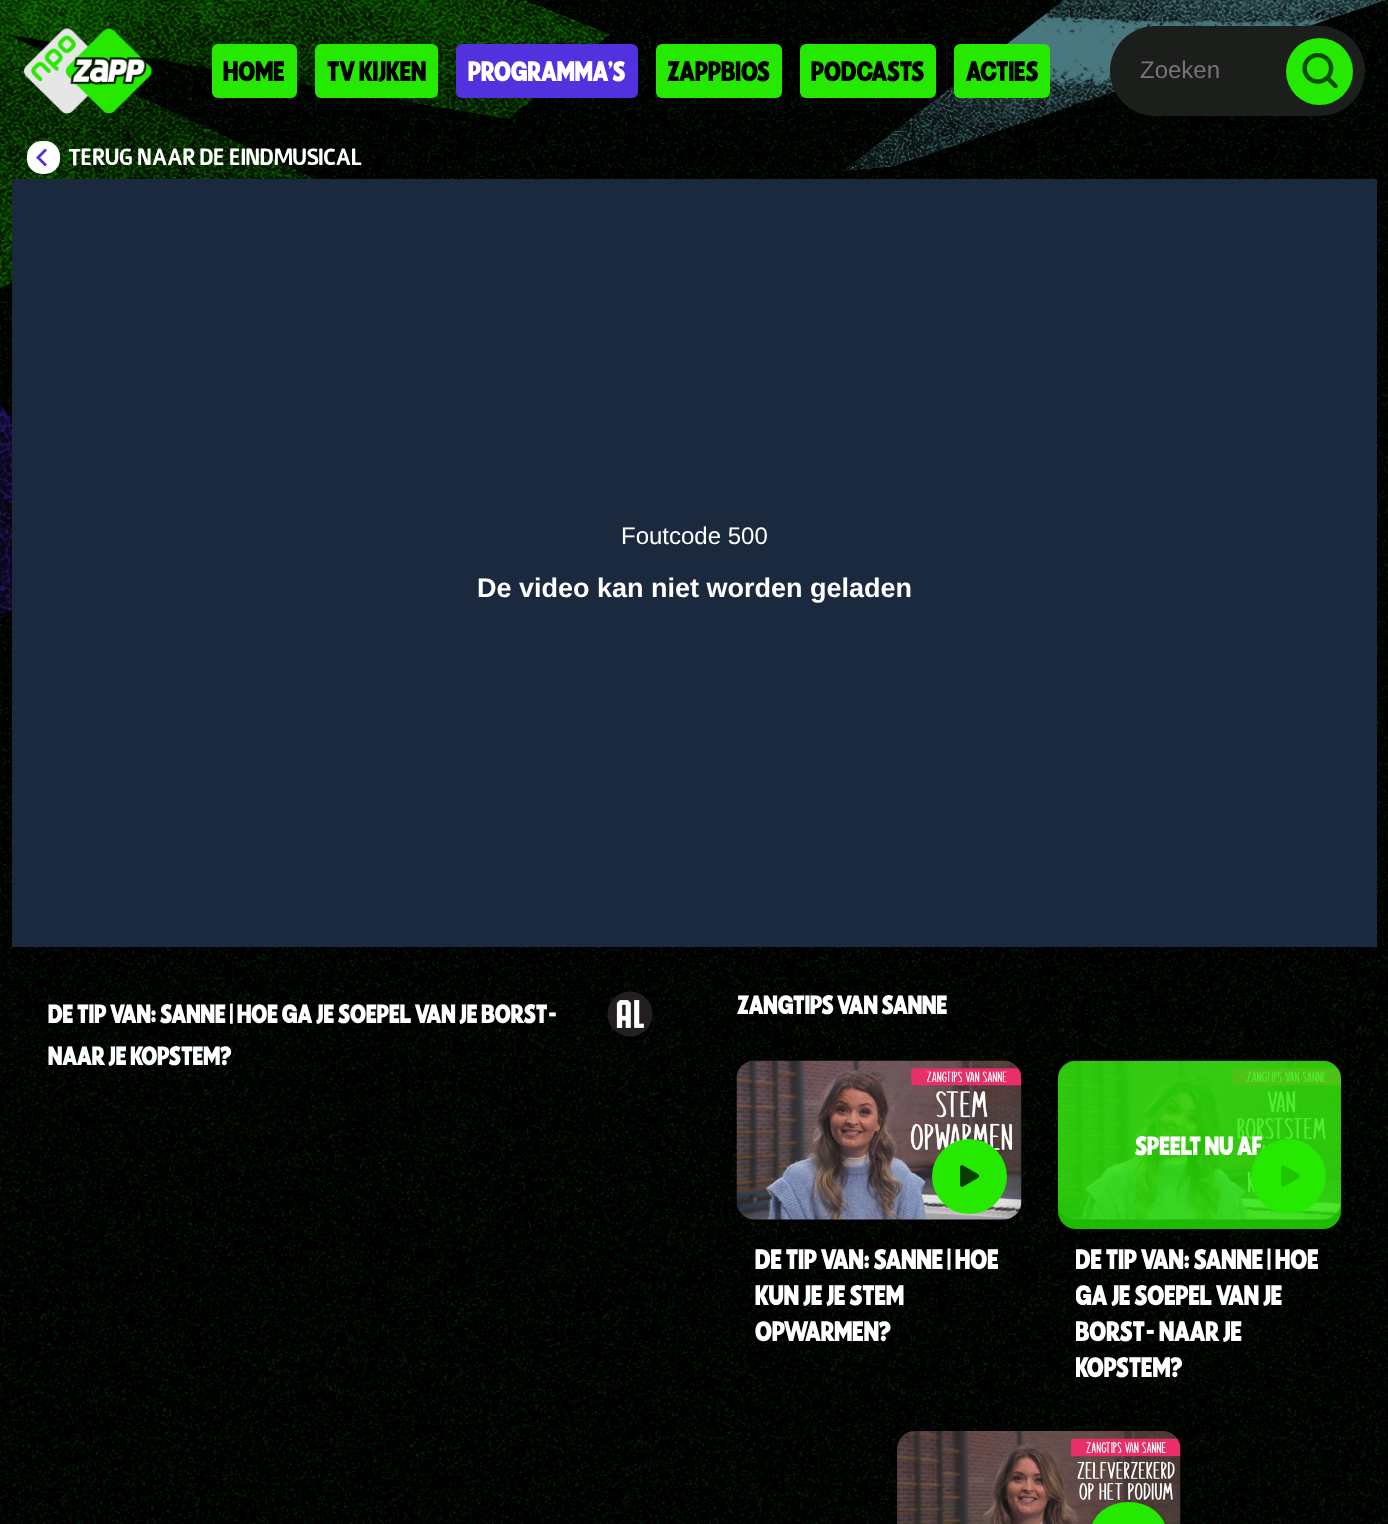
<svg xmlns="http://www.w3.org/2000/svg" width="1388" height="1524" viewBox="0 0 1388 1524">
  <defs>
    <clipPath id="clip1"><path d="M1076 1241h247v142H1076z"/></clipPath>
  </defs>
  <rect width="100%" height="100%" fill="#fff"/>
  <image x="0" y="0" width="1388" height="1524" href="img/1.png"/>
  <image x="0" y="0" width="1386" height="615" href="img/2.png"/>
  <image x="24" y="28" width="128" height="86" href="img/3.png"/>
  <rect x="212" y="44" width="85" height="54" rx="6" fill="#25e900"/>
  <rect x="315" y="44" width="123" height="54" rx="6" fill="#25e900"/>
  <rect x="456" y="44" width="182" height="54" rx="6" fill="#5331df"/>
  <rect x="656" y="44" width="126" height="54" rx="6" fill="#25e900"/>
  <rect x="800" y="44" width="136" height="54" rx="6" fill="#25e900"/>
  <rect x="954" y="44" width="96" height="54" rx="6" fill="#25e900"/>
  <rect x="1110" y="26" width="255" height="90" rx="45" fill="#1b1e1b"/>
  <circle cx="1319.5" cy="71.5" r="33.5" fill="#25e900"/>
  <image x="1302" y="53" width="36" height="36" href="img/4.png"/>
  <rect x="27" y="141" width="33" height="33" rx="15" fill="#fff"/>
  <path d="M47 150.5L45 148.5L36 157.5L45 166.5L47 164.5L40 157.5Z" fill="#5331df"/>
  <path d="M12 179h1365v768H12z" fill="#1b293f"/>
  <image x="607" y="991" width="46" height="46" href="img/5.png"/>
  <rect x="737" y="1061" width="285" height="159" rx="18" fill="#000"/>
  <image x="736" y="1060" width="286" height="160" href="img/6.png"/>
  <circle cx="969.5" cy="1176.5" r="37.5" fill="#25e900"/>
  <image x="960" y="1165" width="20" height="22" href="img/7.png"/>
  <rect x="1058" y="1061" width="283" height="159" rx="18" fill="#000"/>
  <image x="1057" y="1060" width="284" height="160" href="img/8.png"/>
  <circle cx="1288.5" cy="1176.5" r="37.5" fill="#25e900"/>
  <image x="1281" y="1165" width="20" height="22" href="img/7.png"/>
  <rect x="1058" y="1061" width="283" height="168" rx="18" fill="#25e900cc"/>
  <rect x="897" y="1431" width="284" height="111" rx="18" fill="#000"/>
  <image x="897" y="1431" width="284" height="93" href="img/9.png"/>
  <rect x="1091" y="1502" width="75" height="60" rx="37.5" fill="#25e900"/>
  <g font-family="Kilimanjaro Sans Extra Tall" font-size="27" fill="#000">
    <text x="223" y="81">HOME</text>
    <text x="327" y="81">TV KIJKEN</text>
  </g>
  <text x="468" y="81" font-family="Kilimanjaro Sans Extra Tall" font-size="27" fill="#fff">PROGRAMMA'S</text>
  <g font-family="Kilimanjaro Sans Extra Tall" font-size="27" fill="#000">
    <text x="667" y="81">ZAPPBIOS</text>
    <text x="811" y="81">PODCASTS</text>
    <text x="966" y="81">ACTIES</text>
  </g>
  <text x="1140" y="78" font-family="Liberation Sans" font-size="24" fill="#757575">Zoeken</text>
  <text x="69" y="165" font-family="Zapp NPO" font-size="22.5" fill="#fff">TERUG NAAR DE EINDMUSICAL</text>
  <text x="621" y="544" font-family="Liberation Sans" font-size="24" fill="#fff">Foutcode 500</text>
  <text x="477" y="597" font-family="Liberation Sans" font-size="27" font-weight="bold" fill="#fff">De video kan niet worden geladen</text>
  <g font-family="Kilimanjaro Sans Extra Tall" font-size="25.5" fill="#fff">
    <text x="48" y="1023">DE TIP VAN: SANNE | HOE GA JE SOEPEL VAN JE BORST-</text>
    <text x="48" y="1065">NAAR JE KOPSTEM?</text>
    <text x="737" y="1014">ZANGTIPS VAN SANNE</text>
  </g>
  <g font-family="Kilimanjaro Sans Extra Tall" font-size="27" fill="#fff">
    <text x="755" y="1269">DE TIP VAN: SANNE | HOE</text>
    <text x="755" y="1305">KUN JE JE STEM</text>
    <text x="755" y="1341">OPWARMEN?</text>
  </g>
  <text x="1135" y="1155" font-family="Kilimanjaro Sans Extra Tall" font-size="25.5" fill="#fff">SPEELT NU AF</text>
  <g clip-path="url(#clip1)">
    <g font-family="Kilimanjaro Sans Extra Tall" font-size="27" fill="#fff">
      <text x="1075" y="1269">DE TIP VAN: SANNE | HOE</text>
      <text x="1075" y="1305">GA JE SOEPEL VAN JE</text>
      <text x="1075" y="1341">BORST- NAAR JE</text>
      <text x="1075" y="1377">KOPSTEM?</text>
    </g>
  </g>
</svg>
